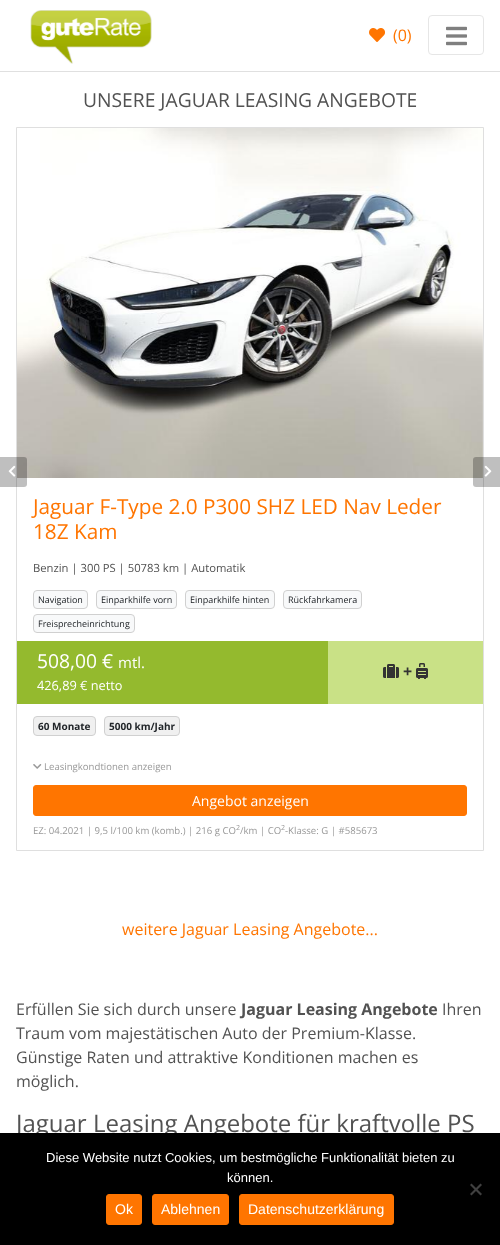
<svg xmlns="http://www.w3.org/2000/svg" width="500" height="1245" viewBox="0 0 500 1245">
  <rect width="100%" height="100%" fill="#fff"/>
  <path d="M0 71h500v1H0z" fill="#e0e0e0"/>
  <image x="30" y="10" width="122" height="54" href="img/1.png"/>
  <image x="369" y="28" width="16" height="14" href="img/2.png"/>
  <rect x="428.5" y="15.5" width="55" height="39" rx="3.5" fill="none" stroke="#e6e6e6"/>
  <image x="446" y="26" width="21" height="20" href="img/3.png"/>
  <path d="M16.5 127.5h467v723H16.5z" fill="none" stroke="#dfdfdf"/>
  <image x="17" y="128" width="466" height="350" href="img/6.png"/>
  <rect x="-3" y="457" width="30" height="30" rx="3" fill="#00000040"/>
  <image x="8" y="465" width="8" height="12" href="img/4.png"/>
  <rect x="473" y="457" width="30" height="30" rx="3" fill="#00000040"/>
  <image x="484" y="465" width="8" height="12" href="img/5.png"/>
  <rect x="33.5" y="590.5" width="54" height="18" rx="3.5" fill="#f8f9fa" stroke="#d0d0d0"/>
  <rect x="96.5" y="590.5" width="80" height="18" rx="3.5" fill="#f8f9fa" stroke="#d0d0d0"/>
  <rect x="185.5" y="590.5" width="89" height="18" rx="3.5" fill="#f8f9fa" stroke="#d0d0d0"/>
  <rect x="283.5" y="590.5" width="78" height="18" rx="3.5" fill="#f8f9fa" stroke="#d0d0d0"/>
  <rect x="33.5" y="614.5" width="101" height="18" rx="3.5" fill="#f8f9fa" stroke="#d0d0d0"/>
  <path d="M17 641h311v63H17z" fill="#94ba2e"/>
  <path d="M328 641h155v63H328z" fill="#c9e186"/>
  <image x="383" y="664" width="16" height="14" href="img/7.png"/>
  <image x="416" y="663" width="12" height="16" href="img/8.png"/>
  <rect x="33.5" y="716.5" width="62" height="19" rx="3.5" fill="#f0f0f0" stroke="#d0d0d0"/>
  <rect x="104.5" y="716.5" width="75" height="19" rx="3.5" fill="#f0f0f0" stroke="#d0d0d0"/>
  <image x="33" y="764" width="9" height="5" href="img/9.png"/>
  <rect x="33.5" y="785.5" width="433" height="30" rx="2.5" fill="#ff7500" stroke="#ff7500"/>
  <text x="393" y="41" font-family="Open Sans" font-size="16" fill="#ff7500">(0)</text>
  <text x="83" y="107" font-family="Open Sans" font-size="19.25" fill="#525252">UNSERE JAGUAR LEASING ANGEBOTE</text>
  <g font-family="Open Sans" font-size="20.75" fill="#ff7500">
    <text x="33" y="514">Jaguar F-Type 2.0 P300 SHZ LED Nav Leder</text>
    <text x="33" y="539">18Z Kam</text>
  </g>
  <text x="33" y="572" font-family="Open Sans" font-size="11.25" fill="#525252">Benzin | 300 PS | 50783 km | Automatik</text>
  <g font-family="Open Sans" font-size="9" fill="#212529">
    <text x="38" y="603">Navigation</text>
    <text x="101" y="603">Einparkhilfe vorn</text>
    <text x="190" y="603">Einparkhilfe hinten</text>
    <text x="288" y="603">Rückfahrkamera</text>
    <text x="38" y="627">Freisprecheinrichtung</text>
  </g>
  <text x="37" y="668" font-family="Open Sans" font-size="19.25" fill="#fff">508,00 €</text>
  <text x="118" y="668" font-family="Open Sans" font-size="15" fill="#fff">mtl.</text>
  <text x="37" y="690" font-family="Open Sans" font-size="12.75" fill="#fff">426,89 € netto</text>
  <text x="403" y="677" font-family="Open Sans" font-size="16" font-weight="bold" fill="#333">+</text>
  <g font-family="Open Sans" font-size="10" font-weight="bold" fill="#212529">
    <text x="38" y="730">60 Monate</text>
    <text x="109" y="730">5000 km/Jahr</text>
  </g>
  <text x="44" y="770" font-family="Open Sans" font-size="9.6" fill="#999">Leasingkondtionen anzeigen</text>
  <text x="192" y="806" font-family="Open Sans" font-size="14" fill="#fff">Angebot anzeigen</text>
  <text x="33" y="834" font-family="Open Sans" font-size="9.6" fill="#999">EZ: 04.2021 | 9,5 l/100 km (komb.) | 216 g CO</text>
  <text x="236" y="830" font-family="Open Sans" font-size="7" fill="#999">2</text>
  <text x="240" y="834" font-family="Open Sans" font-size="9.6" fill="#999">/km | CO</text>
  <text x="281" y="830" font-family="Open Sans" font-size="7" fill="#999">2</text>
  <text x="285" y="834" font-family="Open Sans" font-size="9.6" fill="#999">-Klasse: G | #585673</text>
  <text x="122" y="935" font-family="Open Sans" font-size="16" fill="#ff7500">weitere Jaguar Leasing Angebote...</text>
  <text x="16" y="1015" font-family="Open Sans" font-size="16" fill="#525252">Erfüllen Sie sich durch unsere</text>
  <text x="241" y="1015" font-family="Open Sans" font-size="16" font-weight="bold" fill="#525252">Jaguar Leasing Angebote</text>
  <g font-family="Open Sans" font-size="16" fill="#525252">
    <text x="442" y="1015">Ihren</text>
    <text x="16" y="1039">Traum vom majestätischen Auto der Premium-Klasse.</text>
    <text x="16" y="1063">Günstige Raten und attraktive Konditionen machen es</text>
    <text x="16" y="1087">möglich.</text>
  </g>
  <text x="16" y="1132" font-family="Open Sans" font-size="24" fill="#525252">Jaguar Leasing Angebote für kraftvolle PS</text>
  <path d="M0 1133h500v112H0z" fill="#000"/>
  <g font-family="Liberation Sans" font-size="13" fill="#fff">
    <text x="46" y="1162">Diese Website nutzt Cookies, um bestmögliche Funktionalität bieten zu</text>
    <text x="227" y="1182">können.</text>
  </g>
  <path d="M480.5 1183.5L482 1185L471.5 1195.5L470 1194Z" fill="#404040"/>
  <path d="M470 1185L471.5 1183.5L482 1194L480.5 1195.5Z" fill="#404040"/>
  <rect x="106.5" y="1194.5" width="35" height="30" rx="2.5" fill="#ff7500" stroke="#ff7500"/>
  <text x="115" y="1214" font-family="Liberation Sans" font-size="14" fill="#fff">Ok</text>
  <rect x="152.5" y="1194.5" width="76" height="30" rx="2.5" fill="#ff7500" stroke="#ff7500"/>
  <text x="161" y="1214" font-family="Liberation Sans" font-size="14" fill="#fff">Ablehnen</text>
  <rect x="239.5" y="1194.5" width="154" height="30" rx="2.5" fill="#ff7500" stroke="#ff7500"/>
  <text x="248" y="1214" font-family="Liberation Sans" font-size="14" fill="#fff">Datenschutzerklärung</text>
</svg>
